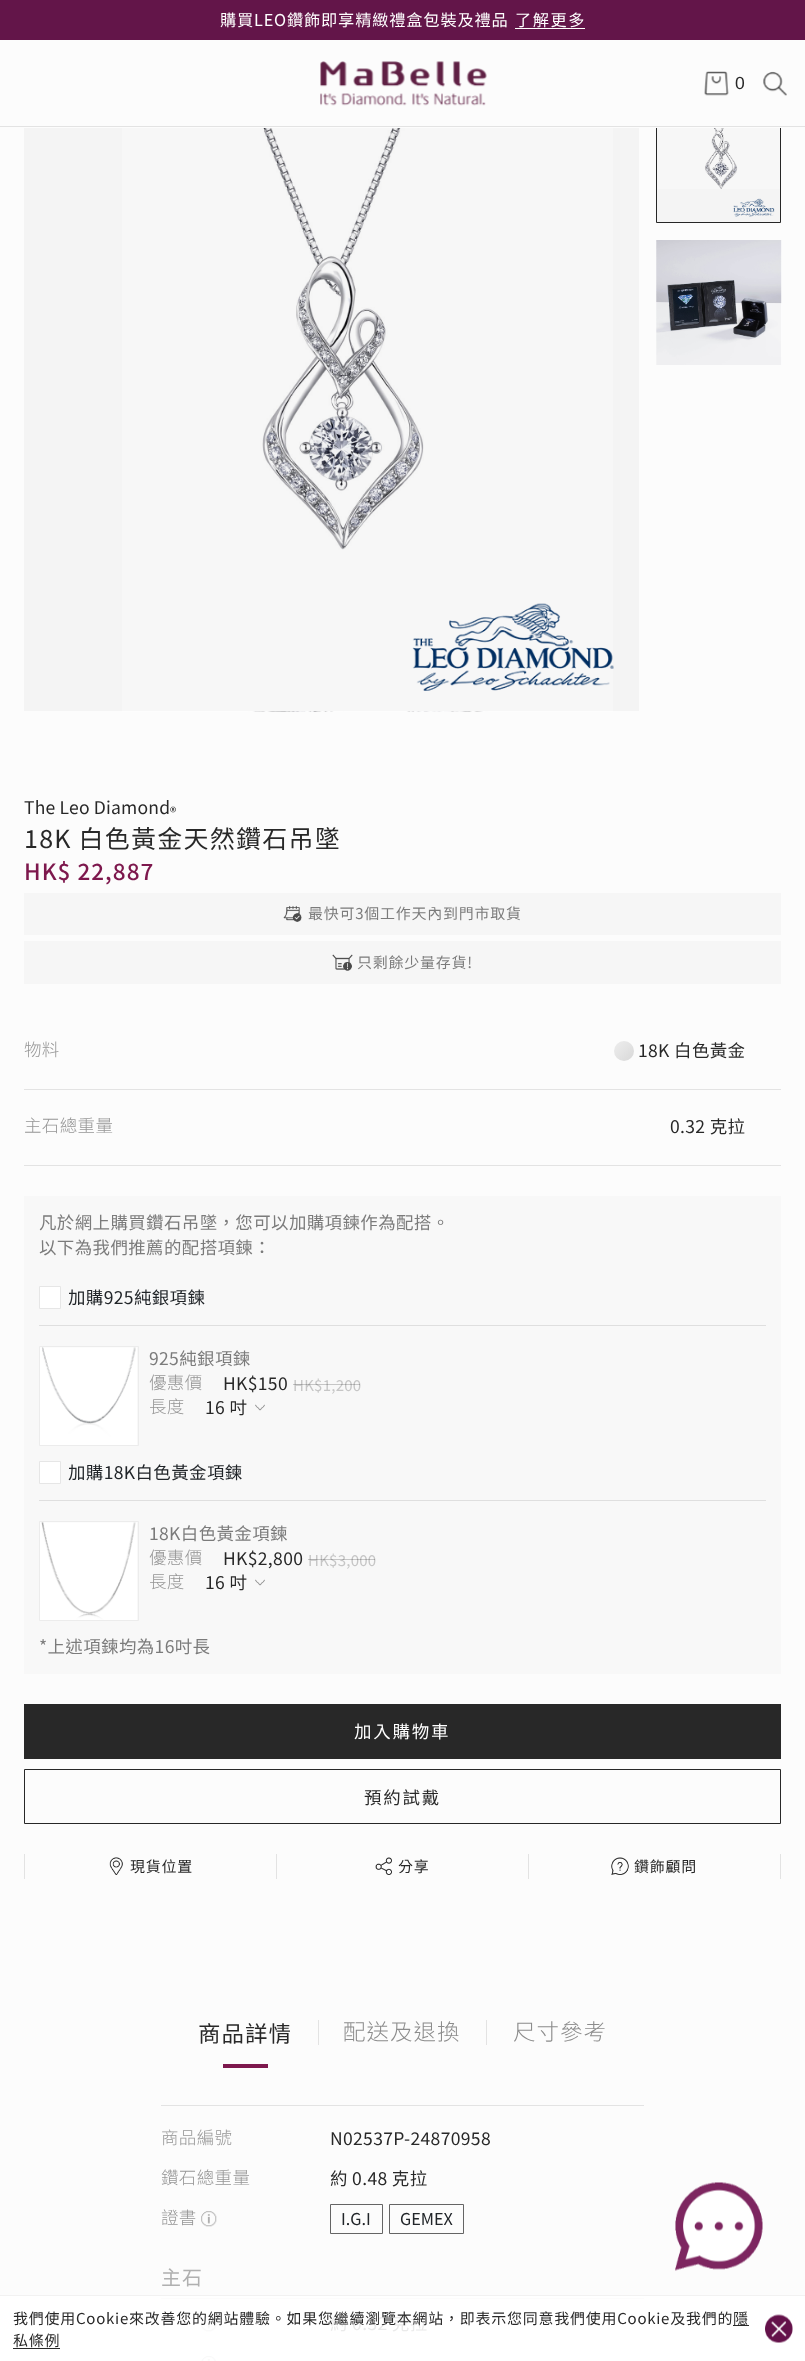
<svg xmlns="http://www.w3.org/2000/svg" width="805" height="2361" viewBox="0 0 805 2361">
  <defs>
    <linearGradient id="g1" gradientUnits="userSpaceOnUse" x1="614" y1="1041" x2="634" y2="1061"><stop offset="0" stop-color="#eee"/><stop offset="1" stop-color="#d8d8d8"/></linearGradient>
  </defs>
  <rect width="100%" height="100%" fill="#fcfcfc"/>
  <path d="M0 2296h805v65H0z" fill="#fff"/>
  <path d="M657 128h123v94H657z" fill="#f4f4f4"/>
  <path d="M24 128h615v583H24z" fill="#f4f4f4"/>
  <path d="M0 0h805v40H0z" fill="#631549"/>
  <path d="M515 28h70v1H515z" fill="#fff"/>
  <path d="M656.5 98.5h124v124H656.5z" fill="none" stroke="#272727"/>
  <path d="M656 98h125v30H656z" fill="#fcfcfc"/>
  <path d="M0 126h805v1H0z" fill="#e3e3e3"/>
  <image x="320" y="61" width="167" height="45" href="img/1.png"/>
  <image x="704" y="71" width="25" height="25" href="img/2.png"/>
  <image x="763" y="71" width="24" height="25" href="img/3.png"/>
  <image x="122" y="711" width="491" height="1" href="img/4.png"/>
  <image x="122" y="128" width="491" height="583" href="img/5.png"/>
  <image x="412" y="603" width="202" height="88" href="img/6.png"/>
  <image x="657" y="128" width="123" height="61" href="img/7.png"/>
  <image x="733" y="198" width="42" height="19" href="img/8.png"/>
  <image x="656" y="240" width="126" height="125" href="img/9.png"/>
  <path d="M24 893h757v42H24z" fill="#f6f6f6"/>
  <image x="283" y="905" width="19" height="17" href="img/10.png"/>
  <path d="M24 941h757v43H24z" fill="#f6f6f6"/>
  <image x="332" y="954" width="21" height="17" href="img/11.png"/>
  <path d="M24 1089h757v1H24z" fill="#e3e3e3"/>
  <circle cx="624" cy="1051" r="10" fill="url(#g1)"/>
  <path d="M24 1165h757v1H24z" fill="#e3e3e3"/>
  <path d="M24 1196h757v478H24z" fill="#f8f8f8"/>
  <path d="M39 1325h727v1H39z" fill="#dfdfdf"/>
  <path d="M39.5 1286.5h21v22H39.5z" fill="#fff" stroke="#e6e6e6"/>
  <path d="M39.5 1346.5h99v99H39.5z" fill="none" stroke="#ececec"/>
  <image x="40" y="1347" width="97" height="98" href="img/12.png"/>
  <image x="255" y="1404" width="10" height="7" href="img/13.png"/>
  <path d="M39 1500h727v1H39z" fill="#dfdfdf"/>
  <path d="M39.5 1461.5h21v22H39.5z" fill="#fff" stroke="#e6e6e6"/>
  <path d="M39.5 1521.5h99v99H39.5z" fill="none" stroke="#ececec"/>
  <image x="40" y="1522" width="97" height="98" href="img/14.png"/>
  <image x="255" y="1579" width="10" height="7" href="img/13.png"/>
  <path d="M24 1704h757v55H24z" fill="#282828"/>
  <path d="M24.5 1769.5h756v54H24.5z" fill="none" stroke="#282828"/>
  <path d="M276 1854h1v25H276z" fill="#e3e3e3"/>
  <path d="M24 1854h1v25H24z" fill="#e3e3e3"/>
  <image x="109" y="1857" width="14" height="18" href="img/15.png"/>
  <path d="M528 1854h1v25H528z" fill="#e3e3e3"/>
  <image x="375" y="1857" width="17" height="18" href="img/16.png"/>
  <path d="M780 1854h1v25H780z" fill="#e3e3e3"/>
  <image x="611" y="1857" width="18" height="18" href="img/17.png"/>
  <path d="M223 2064h45v4H223z" fill="#7d184d"/>
  <path d="M318 2020h1v25H318z" fill="#e3e3e3"/>
  <path d="M486 2020h1v25H486z" fill="#e3e3e3"/>
  <path d="M161 2105h483v1H161z" fill="#e3e3e3"/>
  <image x="201" y="2211" width="16" height="16" href="img/18.png"/>
  <path d="M330.5 2204.5h52v29H330.5z" fill="none" stroke="#656565"/>
  <path d="M389.5 2204.5h74v29H389.5z" fill="none" stroke="#656565"/>
  <path d="M161 2298h483v1H161z" fill="#fcfcfc"/>
  <image x="201" y="2316" width="16" height="16" href="img/19.png"/>
  <image x="201" y="2356" width="15" height="5" href="img/20.png"/>
  <image x="675" y="2182" width="88" height="89" href="img/21.png"/>
  <path d="M0 2295h805v1H0z" fill="#f2f2f2"/>
  <path d="M733 2325h16v1H733z" fill="#282828"/>
  <path d="M13 2348h47v1H13z" fill="#282828"/>
  <image x="765" y="2314" width="28" height="29" href="img/22.png"/>
  <text x="220" y="26" font-family="Noto Sans TC" font-size="16.25" letter-spacing="0.8" fill="#fff">購買LEO鑽飾即享精緻禮盒包裝及禮品</text>
  <text x="515" y="26" font-family="Noto Sans TC" font-size="16.25" letter-spacing="1.5" fill="#fff">了解更多</text>
  <text x="735" y="89" font-family="Liberation Sans" font-size="17.5" letter-spacing="0.35" fill="#282828">0</text>
  <text x="24" y="814" font-family="Noto Sans TC" font-size="17.5" letter-spacing="0.2" fill="#282828">The Leo Diamond</text>
  <text x="170" y="817" font-family="Noto Sans TC" font-size="13" letter-spacing="0.2" fill="#282828">®</text>
  <text x="24" y="848" font-family="Noto Sans TC" font-size="25" letter-spacing="1.25" fill="#282828">18K 白色黃金天然鑽石吊墜</text>
  <text x="24" y="880" font-family="Noto Sans TC" font-size="22.5" font-weight="500" letter-spacing="1" fill="#7d184d">HK$ 22,887</text>
  <g font-family="Noto Sans TC" font-size="15" letter-spacing="0.75" fill="#7b7b7b">
    <text x="308" y="919">最快可3個工作天內到門市取貨</text>
    <text x="357" y="968">只剩餘少量存貨!</text>
  </g>
  <text x="24" y="1056" font-family="Noto Sans TC" font-size="17.5" font-weight="300" letter-spacing="0.35" fill="#959595">物料</text>
  <text x="638" y="1057" font-family="Noto Sans TC" font-size="17.5" letter-spacing="0.35" fill="#282828">18K 白色黃金</text>
  <text x="24" y="1132" font-family="Noto Sans TC" font-size="17.5" font-weight="300" letter-spacing="0.35" fill="#959595">主石總重量</text>
  <text x="670" y="1133" font-family="Noto Sans TC" font-size="17.5" letter-spacing="0.35" fill="#282828">0.32 克拉</text>
  <g font-family="Noto Sans TC" font-size="17.5" letter-spacing="0.35" fill="#7b7b7b">
    <text x="39" y="1229">凡於網上購買鑽石吊墜，您可以加購項鍊作為配搭。</text>
    <text x="39" y="1254">以下為我們推薦的配搭項鍊：</text>
  </g>
  <text x="68" y="1304" font-family="Noto Sans TC" font-size="17.5" letter-spacing="0.35" fill="#212529">加購925純銀項鍊</text>
  <text x="149" y="1365" font-family="Noto Sans TC" font-size="17.5" letter-spacing="0.35" fill="#7b7b7b">925純銀項鍊</text>
  <text x="149" y="1389" font-family="Noto Sans TC" font-size="17.5" font-weight="300" letter-spacing="0.35" fill="#959595">優惠價</text>
  <text x="223" y="1390" font-family="Noto Sans TC" font-size="17.5" letter-spacing="0.35" fill="#282828">HK$150</text>
  <text x="293" y="1391" font-family="Noto Sans TC" font-size="15" letter-spacing="0.25" fill="#c6c6c6">HK$1,200</text>
  <path d="M293 1384h67v1H293z" fill="#00000033"/>
  <text x="149" y="1413" font-family="Noto Sans TC" font-size="17.5" font-weight="300" letter-spacing="0.35" fill="#959595">長度</text>
  <text x="205" y="1414" font-family="Noto Sans TC" font-size="17.5" letter-spacing="0.35" fill="#282828">16 吋</text>
  <text x="68" y="1479" font-family="Noto Sans TC" font-size="17.5" letter-spacing="0.35" fill="#212529">加購18K白色黃金項鍊</text>
  <text x="149" y="1540" font-family="Noto Sans TC" font-size="17.5" letter-spacing="0.35" fill="#7b7b7b">18K白色黃金項鍊</text>
  <text x="149" y="1564" font-family="Noto Sans TC" font-size="17.5" font-weight="300" letter-spacing="0.35" fill="#959595">優惠價</text>
  <text x="223" y="1565" font-family="Noto Sans TC" font-size="17.5" letter-spacing="0.35" fill="#282828">HK$2,800</text>
  <text x="308" y="1566" font-family="Noto Sans TC" font-size="15" letter-spacing="0.25" fill="#c6c6c6">HK$3,000</text>
  <path d="M308 1559h67v1H308z" fill="#00000033"/>
  <text x="149" y="1588" font-family="Noto Sans TC" font-size="17.5" font-weight="300" letter-spacing="0.35" fill="#959595">長度</text>
  <text x="205" y="1589" font-family="Noto Sans TC" font-size="17.5" letter-spacing="0.35" fill="#282828">16 吋</text>
  <text x="39" y="1653" font-family="Noto Sans TC" font-size="17.5" letter-spacing="0.35" fill="#7b7b7b">*上述項鍊均為16吋長</text>
  <text x="354" y="1738" font-family="Noto Sans TC" font-size="17.5" letter-spacing="1.75" fill="#fff">加入購物車</text>
  <text x="364" y="1804" font-family="Noto Sans TC" font-size="17.5" letter-spacing="1.75" fill="#282828">預約試戴</text>
  <g font-family="Noto Sans TC" font-size="15" letter-spacing="0.75" fill="#282828">
    <text x="130" y="1872">現貨位置</text>
    <text x="398" y="1872">分享</text>
    <text x="634" y="1872">鑽飾顧問</text>
  </g>
  <text x="198" y="2042" font-family="Noto Sans TC" font-size="22.5" letter-spacing="1" fill="#282828">商品詳情</text>
  <g font-family="Noto Sans TC" font-size="22.5" font-weight="300" letter-spacing="1" fill="#8c8c8c">
    <text x="343" y="2040">配送及退換</text>
    <text x="513" y="2040">尺寸參考</text>
  </g>
  <text x="161" y="2144" font-family="Noto Sans TC" font-size="17.5" font-weight="300" letter-spacing="0.35" fill="#959595">商品編號</text>
  <text x="330" y="2145" font-family="Noto Sans TC" font-size="17.5" letter-spacing="0.35" fill="#282828">N02537P-24870958</text>
  <text x="161" y="2184" font-family="Noto Sans TC" font-size="17.5" font-weight="300" letter-spacing="0.35" fill="#959595">鑽石總重量</text>
  <text x="330" y="2185" font-family="Noto Sans TC" font-size="17.5" letter-spacing="0.35" fill="#282828">約 0.48 克拉</text>
  <text x="161" y="2224" font-family="Noto Sans TC" font-size="17.5" font-weight="300" letter-spacing="0.35" fill="#959595">證書</text>
  <g font-family="Noto Sans TC" font-size="16.25" fill="#212529">
    <text x="341" y="2225">I.G.I</text>
    <text x="400" y="2225">GEMEX</text>
  </g>
  <text x="161" y="2285" font-family="Noto Sans TC" font-size="20" letter-spacing="1" fill="#b0b0b0">主石</text>
  <text x="330" y="2330" font-family="Noto Sans TC" font-size="17.5" letter-spacing="0.35" fill="#eaeaea">約 0.32 克拉</text>
  <g font-family="Noto Sans TC" font-size="15" letter-spacing="0.75" fill="#282828">
    <text x="13" y="2324">我們使用Cookie來改善您的網站體驗。如果您繼續瀏覽本網站，即表示您同意我們使用Cookie及我們的</text>
    <text x="733" y="2324">隱</text>
    <text x="13" y="2346">私條例</text>
  </g>
</svg>
